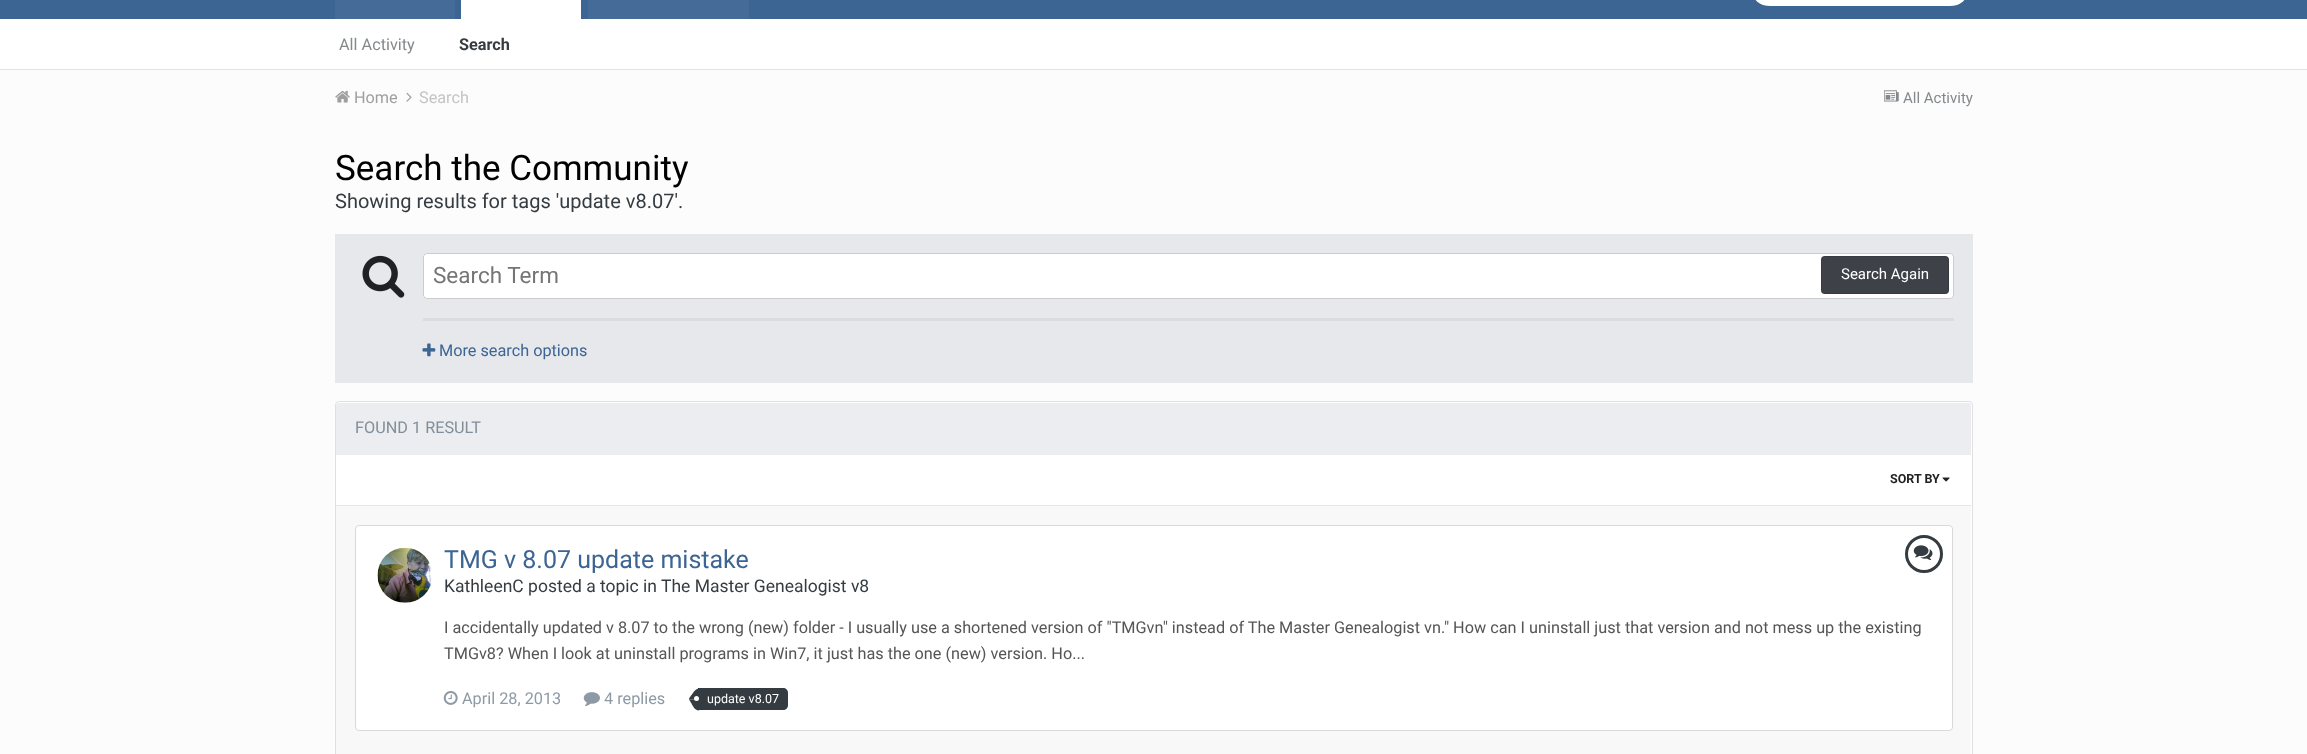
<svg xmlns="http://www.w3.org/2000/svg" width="2307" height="754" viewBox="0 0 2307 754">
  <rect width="100%" height="100%" fill="#fcfcfc"/>
  <path d="M0 69h2307v1H0z" fill="#e3e3e3"/>
  <path d="M0 0h2307v19H0z" fill="#3d6594"/>
  <path d="M0 19h2307v50H0z" fill="#fff"/>
  <rect x="1754" y="-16" width="212" height="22" rx="16" fill="#fff"/>
  <path d="M335 0h120v19H335z" fill="#456b98"/>
  <path d="M588 0h161v19H588z" fill="#456b98"/>
  <path d="M461 0h120v19H461z" fill="#fff"/>
  <image x="335" y="90" width="15" height="13" href="img/1.png"/>
  <image x="406" y="92" width="6" height="10" href="img/2.png"/>
  <image x="1884" y="90" width="15" height="12" href="img/3.png"/>
  <path d="M335 234h1638v149H335z" fill="#e6e8eb"/>
  <image x="362" y="255" width="43" height="43" href="img/4.png"/>
  <rect x="423" y="253" width="1531" height="46" rx="4" fill="#fff"/>
  <rect x="423.5" y="253.5" width="1530" height="45" rx="3.5" fill="none" stroke="#00000033"/>
  <rect x="1821" y="256" width="128" height="38" rx="4" fill="#3e4148"/>
  <rect x="1821.5" y="256.5" width="127" height="37" rx="3.5" fill="none" stroke="#0000001a"/>
  <path d="M423 318h1531v3H423z" fill="#dbdcdf"/>
  <image x="422" y="343" width="14" height="14" href="img/5.png"/>
  <rect x="335.5" y="401.5" width="1637" height="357" rx="3.5" fill="#fff" stroke="#e0e0e0"/>
  <path d="M338.5 403H1968.5C1970 403 1971 404 1971 405.5V455H336V405.5C336 404 337 403 338.5 403Z" fill="#ebedf0"/>
  <path d="M336 505h1635v1H336z" fill="#e6e6e6"/>
  <image x="1942" y="477" width="8" height="5" href="img/6.png"/>
  <path d="M336 506h1635v248H336z" fill="#f8f8f8"/>
  <rect x="355.5" y="525.5" width="1597" height="205" rx="3.5" fill="#fff" stroke="#d9d9d9"/>
  <image x="377" y="547" width="55" height="56" href="img/7.png"/>
  <circle cx="1924" cy="554" r="17.5" fill="none" stroke="#353c41" stroke-width="3"/>
  <image x="1913" y="545" width="20" height="16" href="img/8.png"/>
  <image x="443" y="691" width="15" height="14" href="img/9.png"/>
  <image x="583" y="692" width="17" height="14" href="img/10.png"/>
  <path d="M698 688H783C786 688 788 690 788 693V705C788 708 786 710 783 710H698Z" fill="#353c41"/>
  <path d="M691.5 703.5L689 699.5H699V700V710.5C695 710.5 693 706.5 691.5 703.5ZM699 699.5H699Z" fill="#353c41" fill-rule="evenodd"/>
  <path d="M691.5 695C693.5 692.5 695.5 688.5 699 688.5V699V699.5H689C689 697.5 691 696 691.5 695ZM699 699.5H699Z" fill="#353c41" fill-rule="evenodd"/>
  <circle cx="696.5" cy="698.5" r="2.5" fill="#fff"/>
  <text x="339" y="50" font-family="Roboto" font-size="16.25" fill="#85898c">All Activity</text>
  <text x="459" y="50" font-family="Roboto" font-size="16.25" font-weight="bold" fill="#353c41">Search</text>
  <text x="354" y="103" font-family="Roboto" font-size="16.25" fill="#9f9f9f">Home</text>
  <text x="419" y="103" font-family="Roboto" font-size="16.25" fill="#c4c4c4">Search</text>
  <text x="1903" y="103" font-family="Roboto" font-size="15" fill="#85898c">All Activity</text>
  <text x="335" y="180" font-family="Roboto" font-size="35" fill="#000">Search the Community</text>
  <text x="335" y="208" font-family="Roboto" font-size="20" fill="#353c41">Showing results for tags 'update v8.07'.</text>
  <text x="433" y="283" font-family="Roboto" font-size="22.5" fill="#757575">Search Term</text>
  <text x="1841" y="279" font-family="Roboto" font-size="15" fill="#fff">Search Again</text>
  <text x="439" y="356" font-family="Roboto" font-size="16.25" fill="#3d6594">More search options</text>
  <text x="355" y="433" font-family="Roboto" font-size="16.25" fill="#828e99">FOUND 1 RESULT</text>
  <text x="1890" y="483" font-family="Roboto" font-size="12.5" font-weight="bold" fill="#222">SORT BY</text>
  <text x="444" y="568" font-family="Roboto" font-size="25" fill="#3d6594">TMG v 8.07 update mistake</text>
  <g font-family="Roboto" font-size="17.5" fill="#353c41">
    <text x="444" y="592">KathleenC posted a topic in</text>
    <text x="661" y="592">The Master Genealogist v8</text>
  </g>
  <g font-family="Roboto" font-size="16.25" fill="#555">
    <text x="444" y="633">I accidentally updated v 8.07 to the wrong (new) folder - I usually use a shortened version of "TMGvn" instead of The Master Genealogist vn." How can I uninstall just that version and not mess up the existing</text>
    <text x="444" y="659">TMGv8? When I look at uninstall programs in Win7, it just has the one (new) version. Ho...</text>
  </g>
  <g font-family="Roboto" font-size="16.25" fill="#8d9aa6">
    <text x="462" y="704">April 28, 2013</text>
    <text x="604" y="704">4 replies</text>
  </g>
  <text x="707" y="703" font-family="Roboto" font-size="12.5" fill="#fff">update v8.07</text>
</svg>
